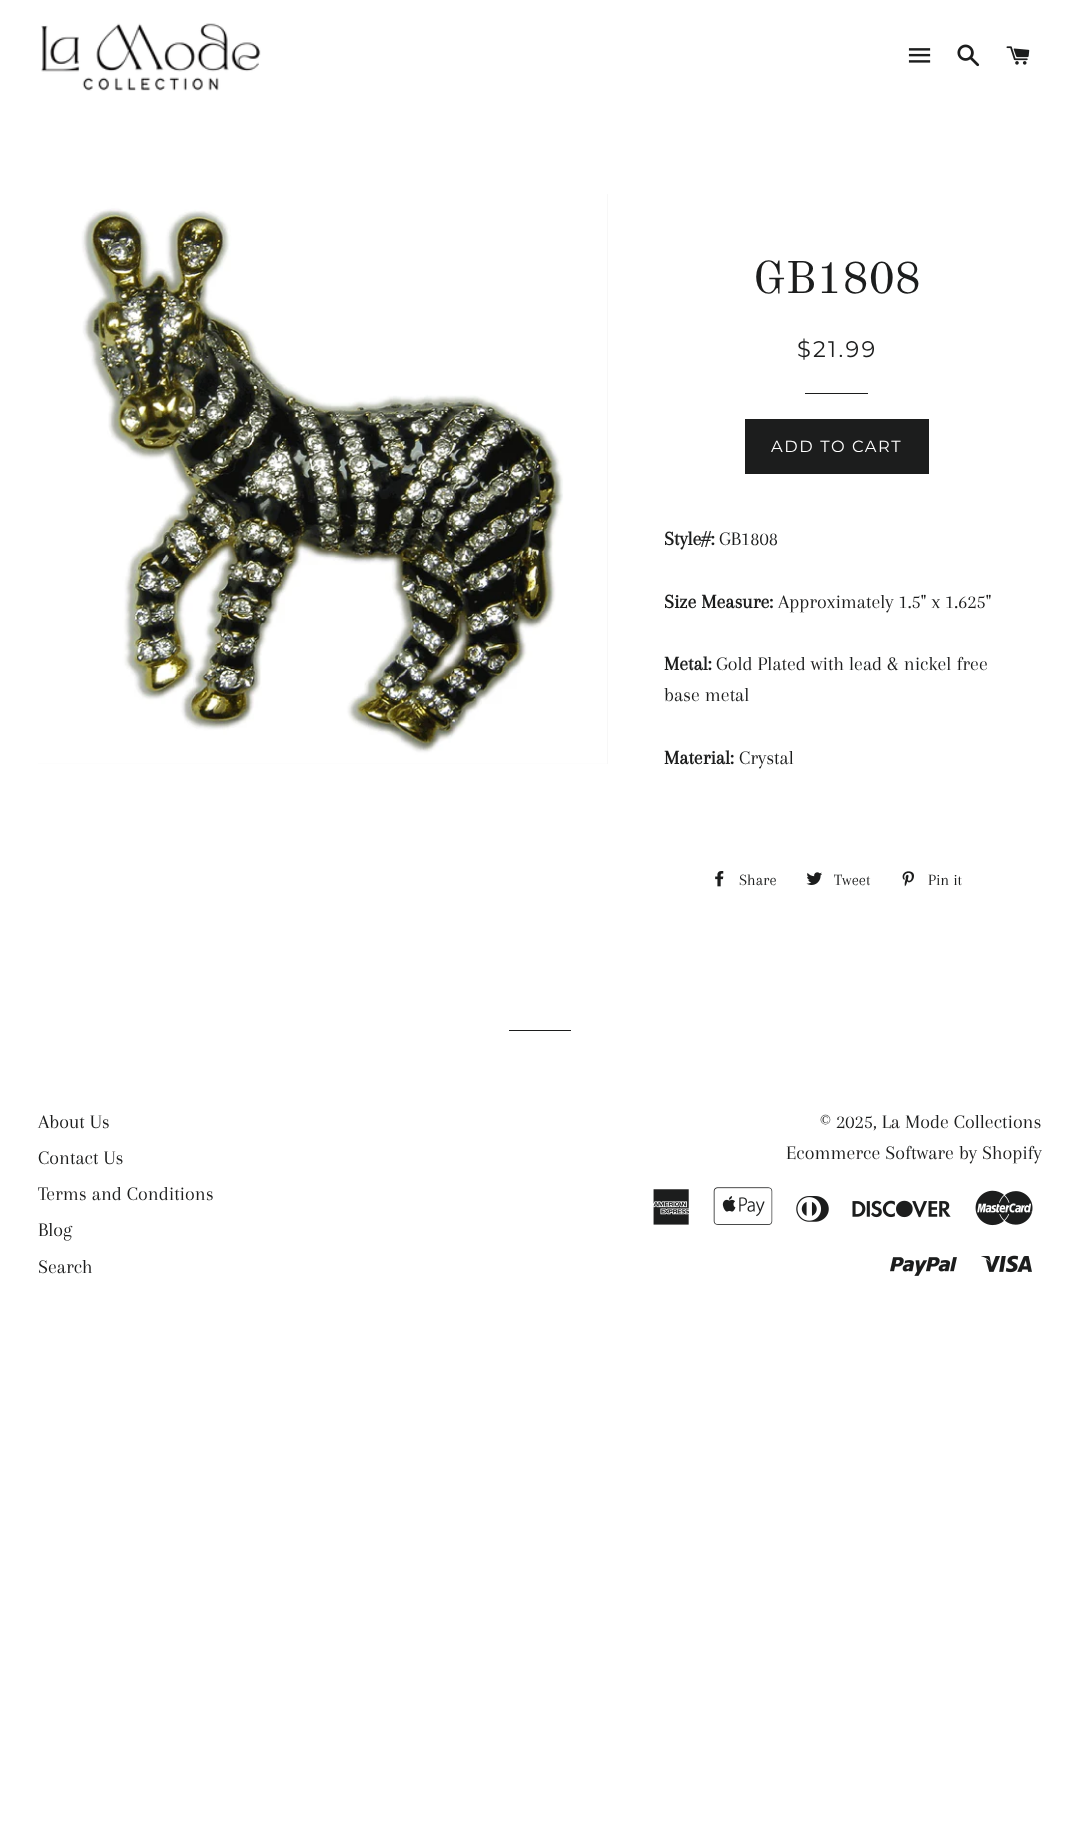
<svg xmlns="http://www.w3.org/2000/svg" width="1078" height="1844" viewBox="0 0 1078 1844">
  <rect width="100%" height="100%" fill="#fff"/>
  <image x="41" y="23" width="220" height="68" href="img/1.png"/>
  <image x="908" y="48" width="23" height="15" href="img/2.png"/>
  <image x="957" y="44" width="23" height="23" href="img/3.png"/>
  <image x="1006" y="46" width="24" height="19" href="img/4.png"/>
  <path d="M38 194h570v570H38z" fill="#f7f7f7"/>
  <image x="38" y="194" width="569" height="570" href="img/5.png"/>
  <path d="M805 393h63v1H805z" fill="#1c1d1d"/>
  <path d="M745 419h184v55H745z" fill="#1c1d1d"/>
  <image x="715" y="871" width="9" height="16" href="img/6.png"/>
  <image x="806" y="872" width="16" height="13" href="img/7.png"/>
  <image x="902" y="871" width="12" height="16" href="img/8.png"/>
  <path d="M509 1030h62v1H509z" fill="#1c1d1d"/>
  <image x="653" y="1189" width="36" height="36" href="img/9.png"/>
  <image x="713" y="1187" width="60" height="38" href="img/10.png"/>
  <image x="796" y="1196" width="33" height="26" href="img/11.png"/>
  <image x="852" y="1200" width="99" height="18" href="img/12.png"/>
  <image x="975" y="1190" width="58" height="36" href="img/13.png"/>
  <image x="890" y="1257" width="67" height="19" href="img/14.png"/>
  <image x="981" y="1255" width="51" height="18" href="img/15.png"/>
  <text x="753" y="293" font-family="Old Standard TT" font-size="45" fill="#1c1d1d">GB1808</text>
  <text x="797" y="357" font-family="Montserrat" font-size="22.5" font-weight="100" letter-spacing="2.25" fill="#1c1d1d">$21.99</text>
  <text x="771" y="452" font-family="Montserrat" font-size="16.25" font-weight="100" letter-spacing="1.6" fill="#fff">ADD TO CART</text>
  <text x="664" y="545" font-family="Arapey" font-size="20" font-weight="bold" fill="#1c1d1d">Style#:</text>
  <text x="719" y="545" font-family="Arapey" font-size="20" fill="#1c1d1d">GB1808</text>
  <text x="664" y="608" font-family="Arapey" font-size="20" font-weight="bold" fill="#1c1d1d">Size Measure:</text>
  <text x="778" y="608" font-family="Arapey" font-size="20" fill="#1c1d1d">Approximately 1.5" x 1.625"</text>
  <text x="664" y="670" font-family="Arapey" font-size="20" font-weight="bold" fill="#1c1d1d">Metal:</text>
  <g font-family="Arapey" font-size="20" fill="#1c1d1d">
    <text x="716" y="670">Gold Plated with lead &amp; nickel free</text>
    <text x="664" y="701">base metal</text>
  </g>
  <text x="664" y="764" font-family="Arapey" font-size="20" font-weight="bold" fill="#1c1d1d">Material:</text>
  <text x="739" y="764" font-family="Arapey" font-size="20" fill="#1c1d1d">Crystal</text>
  <g font-family="Arapey" font-size="16.25" fill="#1c1d1d">
    <text x="739" y="885">Share</text>
    <text x="834" y="885">Tweet</text>
    <text x="928" y="885">Pin it</text>
  </g>
  <g font-family="Arapey" font-size="20" fill="#1c1d1d">
    <text x="38" y="1128">About Us</text>
    <text x="38" y="1164">Contact Us</text>
    <text x="38" y="1200">Terms and Conditions</text>
    <text x="38" y="1236">Blog</text>
    <text x="38" y="1273">Search</text>
    <text x="820" y="1128">© 2025, La Mode Collections</text>
    <text x="786" y="1159">Ecommerce Software by Shopify</text>
  </g>
</svg>
